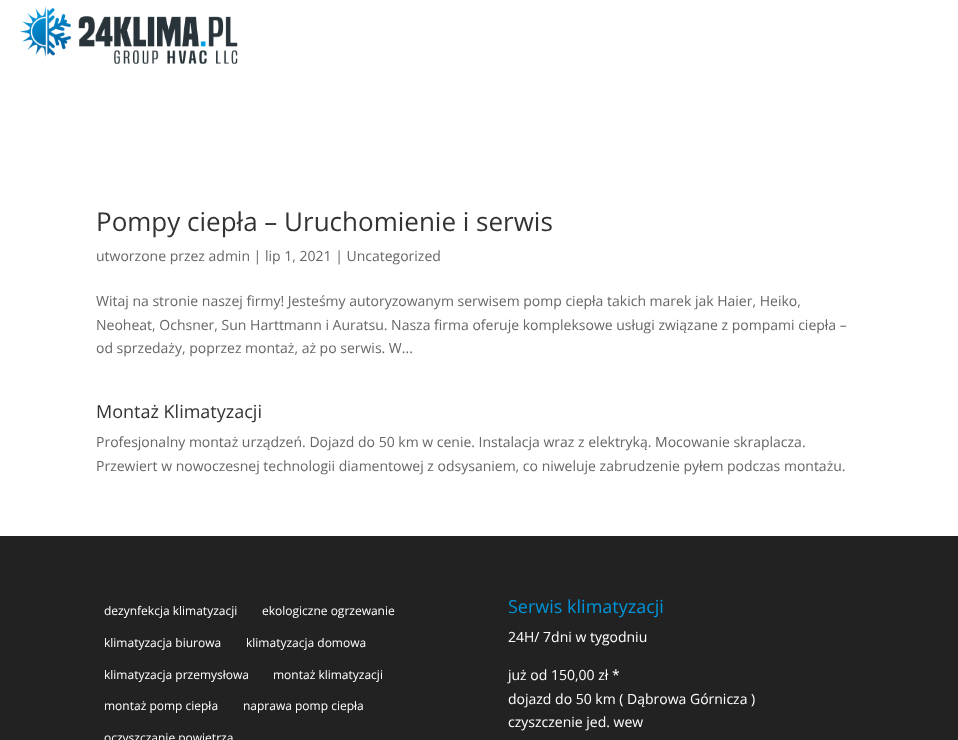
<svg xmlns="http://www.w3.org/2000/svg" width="958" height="740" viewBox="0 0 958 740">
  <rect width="100%" height="100%" fill="#fff"/>
  <image x="20" y="6" width="218" height="58" href="img/1.png"/>
  <path d="M0 536h958v204H0z" fill="#222"/>
  <text x="96" y="231" font-family="Open Sans" font-size="26" fill="#333">Pompy ciepła – Uruchomienie i serwis</text>
  <g font-family="Open Sans" font-size="14" fill="#666">
    <text x="96" y="261">utworzone przez admin | lip 1, 2021 | Uncategorized</text>
    <text x="96" y="306">Witaj na stronie naszej firmy! Jesteśmy autoryzowanym serwisem pomp ciepła takich marek jak Haier, Heiko,</text>
    <text x="96" y="330">Neoheat, Ochsner, Sun Harttmann i Auratsu. Nasza firma oferuje kompleksowe usługi związane z pompami ciepła –</text>
    <text x="96" y="353">od sprzedaży, poprzez montaż, aż po serwis. W...</text>
  </g>
  <text x="96" y="418" font-family="Open Sans" font-size="18" fill="#333">Montaż Klimatyzacji</text>
  <g font-family="Open Sans" font-size="14" fill="#666">
    <text x="96" y="447">Profesjonalny montaż urządzeń. Dojazd do 50 km w cenie. Instalacja wraz z elektryką. Mocowanie skraplacza.</text>
    <text x="96" y="471">Przewiert w nowoczesnej technologii diamentowej z odsysaniem, co niweluje zabrudzenie pyłem podczas montażu.</text>
  </g>
  <g font-family="Open Sans" font-size="12" fill="#fff">
    <text x="104" y="615">dezynfekcja klimatyzacji</text>
    <text x="262" y="615">ekologiczne ogrzewanie</text>
    <text x="104" y="647">klimatyzacja biurowa</text>
    <text x="246" y="647">klimatyzacja domowa</text>
    <text x="104" y="679">klimatyzacja przemysłowa</text>
    <text x="273" y="679">montaż klimatyzacji</text>
    <text x="104" y="710">montaż pomp ciepła</text>
    <text x="243" y="710">naprawa pomp ciepła</text>
    <text x="104" y="742">oczyszczanie powietrza</text>
  </g>
  <text x="508" y="613" font-family="Open Sans" font-size="18" fill="#0094d8">Serwis klimatyzacji</text>
  <g font-family="Open Sans" font-size="14" fill="#fff">
    <text x="508" y="642">24H/ 7dni w tygodniu</text>
    <text x="508" y="680">już od 150,00 zł *</text>
    <text x="508" y="704">dojazd do 50 km ( Dąbrowa Górnicza )</text>
    <text x="508" y="727">czyszczenie jed. wew</text>
  </g>
</svg>
